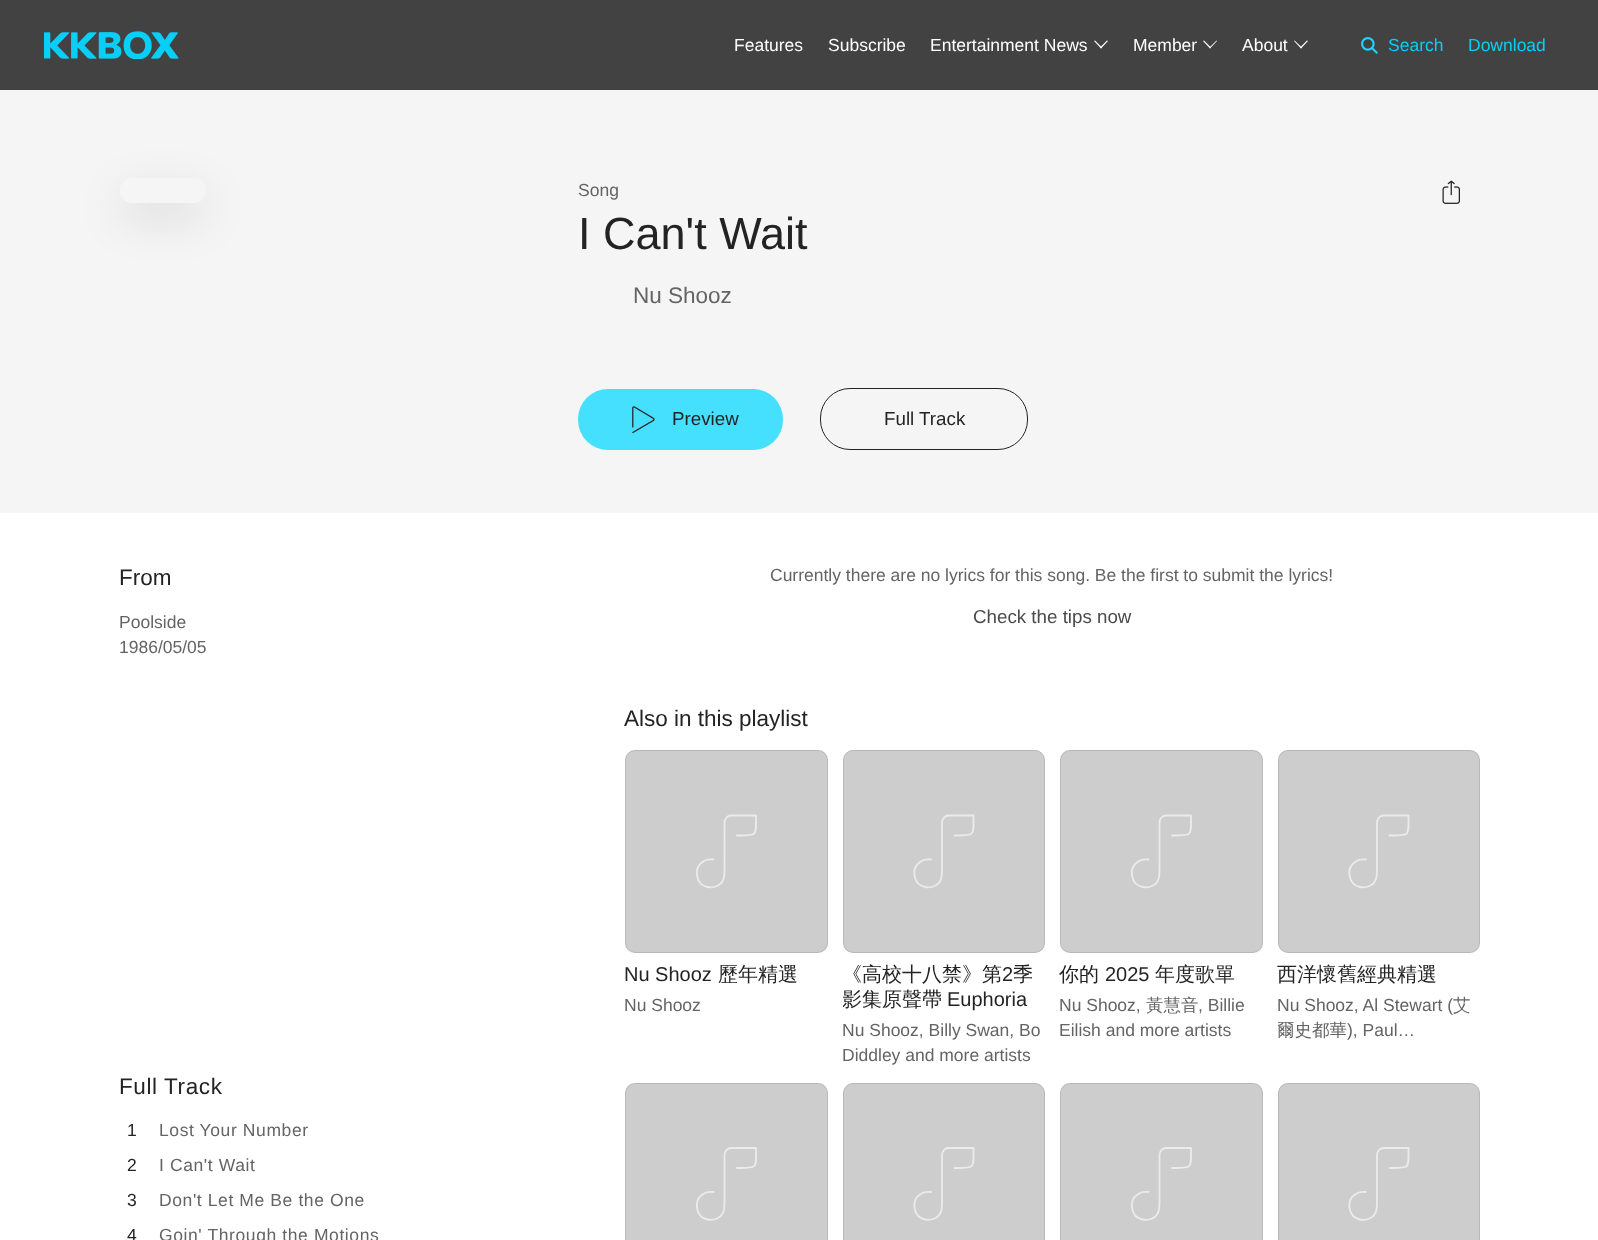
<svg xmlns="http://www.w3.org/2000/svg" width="1598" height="1240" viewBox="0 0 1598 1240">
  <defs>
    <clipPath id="clip1"><path d="M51 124H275V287H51ZM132.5 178H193.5C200.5 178 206 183.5 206 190.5C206 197.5 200.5 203 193.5 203H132.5C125.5 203 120 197.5 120 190.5C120 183.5 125.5 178 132.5 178Z" clip-rule="evenodd"/></clipPath>
    <clipPath id="clip2"><path d="M843 963h202v50H843z"/></clipPath>
    <clipPath id="clip3"><path d="M1278 993h202v50H1278z"/></clipPath>
  </defs>
  <rect width="100%" height="100%" fill="#fff"/>
  <path d="M0 0h1598v90H0z" fill="#424242"/>
  <image x="44" y="31" width="135" height="28" href="img/1.png"/>
  <path d="M1107 40.5L1108 41L1101 48.5L1100 47.5Z" fill="#fff"/>
  <path d="M1095 40.5L1102 47.5L1101 48.5L1094 41Z" fill="#fff"/>
  <path d="M1216.5 40.5L1217 41L1210 48.5L1209.5 47.5Z" fill="#fff"/>
  <path d="M1204 40.5L1211 47.5L1210 48.5L1203 41Z" fill="#fff"/>
  <path d="M1307 40.5L1308 41L1301 48.5L1300 47.5Z" fill="#fff"/>
  <path d="M1294.5 40.5L1302 47.5L1301 48.5L1294 41Z" fill="#fff"/>
  <image x="1361" y="37" width="17" height="17" href="img/2.png"/>
  <path d="M0 90h1598v423H0z" fill="#f5f5f5"/>
  <g clip-path="url(#clip1)">
    <rect x="120" y="193" width="86" height="25" rx="12.5" fill="#0000001f" filter="blur(22.5px)"/>
  </g>
  <image x="1442" y="180" width="18" height="24" href="img/3.png"/>
  <rect x="578" y="389" width="205" height="61" rx="30" fill="#46e0ff"/>
  <image x="632" y="406" width="23" height="28" href="img/4.png"/>
  <rect x="820.5" y="388.5" width="207" height="61" rx="29.5" fill="none" stroke="#232323"/>
  <rect x="625" y="750" width="203" height="203" rx="10" fill="#cdcdcd"/>
  <path d="M713.5 859.5C709.5 859 705.5 859.5 702.5 862C693 868.5 696 885 707.5 887C710.5 887.5 714 887.5 717 886C724.5 883 724.5 875.5 724.5 868.5V871.5V823C724.5 818 728 815.5 731 815.5H756C756 836.5 758 835.5 737 835.5" fill="none" stroke="#ebebeb" stroke-width="1.8" stroke-linecap="round" stroke-linejoin="round"/>
  <rect x="625.5" y="750.5" width="202" height="202" rx="9.5" fill="none" stroke="#0000001a"/>
  <rect x="843" y="750" width="202" height="203" rx="10" fill="#cdcdcd"/>
  <path d="M931 859.5C927 859 923 859.5 920 862C910.5 868.5 913.5 885 925 887C928 887.5 931.5 887.5 934.5 886C942 883 942 875.5 942 868.5V871.5V823C942 818 945.5 815.5 948.5 815.5H973.5C973.5 836.5 975.5 835.5 954.5 835.5" fill="none" stroke="#ebebeb" stroke-width="1.8" stroke-linecap="round" stroke-linejoin="round"/>
  <rect x="843.5" y="750.5" width="201" height="202" rx="9.5" fill="none" stroke="#0000001a"/>
  <rect x="1060" y="750" width="203" height="203" rx="10" fill="#cdcdcd"/>
  <path d="M1148.5 859.5C1144.5 859 1140.5 859.5 1137.5 862C1128 868.5 1131 885 1142.5 887C1145.5 887.5 1149 887.5 1152 886C1159.5 883 1159.5 875.5 1159.5 868.5V871.5V823C1159.5 818 1163 815.5 1166 815.5H1191C1191 836.5 1193 835.5 1172 835.5" fill="none" stroke="#ebebeb" stroke-width="1.8" stroke-linecap="round" stroke-linejoin="round"/>
  <rect x="1060.5" y="750.5" width="202" height="202" rx="9.5" fill="none" stroke="#0000001a"/>
  <rect x="1278" y="750" width="202" height="203" rx="10" fill="#cdcdcd"/>
  <path d="M1366 859.5C1362 859 1358 859.5 1355 862C1345.5 868.5 1348.5 885 1360 887C1363 887.5 1366.5 887.5 1369.5 886C1377 883 1377 875.5 1377 868.5V871.5V823C1377 818 1380.5 815.5 1383.5 815.5H1408.5C1408.5 836.5 1410.5 835.5 1389.5 835.5" fill="none" stroke="#ebebeb" stroke-width="1.8" stroke-linecap="round" stroke-linejoin="round"/>
  <rect x="1278.5" y="750.5" width="201" height="202" rx="9.5" fill="none" stroke="#0000001a"/>
  <rect x="625" y="1083" width="203" height="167" rx="10" fill="#cdcdcd"/>
  <path d="M713.5 1192C709.5 1191.5 705.5 1192 702.5 1194.5C693 1201 696 1217.5 707.5 1219.5C710.5 1220 714 1220 717 1218.5C724.5 1215.5 724.5 1208 724.5 1201V1204V1155.5C724.5 1150.5 728 1148 731 1148H756C756 1169 758 1168 737 1168" fill="none" stroke="#ebebeb" stroke-width="1.8" stroke-linecap="round" stroke-linejoin="round"/>
  <rect x="625.5" y="1083.5" width="202" height="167" rx="9.5" fill="none" stroke="#0000001a"/>
  <rect x="843" y="1083" width="202" height="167" rx="10" fill="#cdcdcd"/>
  <path d="M931 1192C927 1191.5 923 1192 920 1194.5C910.5 1201 913.5 1217.5 925 1219.5C928 1220 931.5 1220 934.5 1218.5C942 1215.5 942 1208 942 1201V1204V1155.5C942 1150.5 945.5 1148 948.5 1148H973.5C973.5 1169 975.5 1168 954.5 1168" fill="none" stroke="#ebebeb" stroke-width="1.8" stroke-linecap="round" stroke-linejoin="round"/>
  <rect x="843.5" y="1083.5" width="201" height="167" rx="9.5" fill="none" stroke="#0000001a"/>
  <rect x="1060" y="1083" width="203" height="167" rx="10" fill="#cdcdcd"/>
  <path d="M1148.5 1192C1144.5 1191.5 1140.5 1192 1137.5 1194.5C1128 1201 1131 1217.5 1142.5 1219.5C1145.5 1220 1149 1220 1152 1218.5C1159.5 1215.5 1159.5 1208 1159.5 1201V1204V1155.5C1159.5 1150.5 1163 1148 1166 1148H1191C1191 1169 1193 1168 1172 1168" fill="none" stroke="#ebebeb" stroke-width="1.8" stroke-linecap="round" stroke-linejoin="round"/>
  <rect x="1060.5" y="1083.5" width="202" height="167" rx="9.5" fill="none" stroke="#0000001a"/>
  <rect x="1278" y="1083" width="202" height="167" rx="10" fill="#cdcdcd"/>
  <path d="M1366 1192C1362 1191.5 1358 1192 1355 1194.5C1345.5 1201 1348.5 1217.5 1360 1219.5C1363 1220 1366.5 1220 1369.5 1218.5C1377 1215.5 1377 1208 1377 1201V1204V1155.5C1377 1150.5 1380.5 1148 1383.5 1148H1408.5C1408.5 1169 1410.5 1168 1389.5 1168" fill="none" stroke="#ebebeb" stroke-width="1.8" stroke-linecap="round" stroke-linejoin="round"/>
  <rect x="1278.5" y="1083.5" width="201" height="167" rx="9.5" fill="none" stroke="#0000001a"/>
  <g font-family="Liberation Sans" font-size="17.5" fill="#fff">
    <text x="734" y="51">Features</text>
    <text x="828" y="51">Subscribe</text>
    <text x="930" y="51">Entertainment News</text>
    <text x="1133" y="51">Member</text>
    <text x="1242" y="51">About</text>
  </g>
  <g font-family="Liberation Sans" font-size="17.5" fill="#09cef6">
    <text x="1388" y="51">Search</text>
    <text x="1468" y="51">Download</text>
  </g>
  <text x="578" y="196" font-family="Liberation Sans" font-size="17.5" fill="#646464">Song</text>
  <text x="578" y="249" font-family="Liberation Sans" font-size="45" fill="#232323">I Can't Wait</text>
  <text x="633" y="303" font-family="Liberation Sans" font-size="22.5" fill="#646464">Nu Shooz</text>
  <g font-family="Liberation Sans" font-size="18.75" fill="#232323">
    <text x="672" y="425">Preview</text>
    <text x="884" y="425">Full Track</text>
  </g>
  <text x="119" y="585" font-family="Liberation Sans" font-size="22.5" fill="#232323">From</text>
  <g font-family="Liberation Sans" font-size="17.5" fill="#646464">
    <text x="119" y="628">Poolside</text>
    <text x="119" y="653">1986/05/05</text>
  </g>
  <text x="119" y="1094" font-family="Liberation Sans" font-size="22.5" letter-spacing="0.6" fill="#232323">Full Track</text>
  <text x="127" y="1136" font-family="Liberation Sans" font-size="17.5" letter-spacing="0.6" fill="#232323">1</text>
  <text x="159" y="1136" font-family="Liberation Sans" font-size="17.5" letter-spacing="0.6" fill="#646464">Lost Your Number</text>
  <text x="127" y="1171" font-family="Liberation Sans" font-size="17.5" letter-spacing="0.6" fill="#232323">2</text>
  <text x="159" y="1171" font-family="Liberation Sans" font-size="17.5" letter-spacing="0.6" fill="#646464">I Can't Wait</text>
  <text x="127" y="1206" font-family="Liberation Sans" font-size="17.5" letter-spacing="0.6" fill="#232323">3</text>
  <text x="159" y="1206" font-family="Liberation Sans" font-size="17.5" letter-spacing="0.6" fill="#646464">Don't Let Me Be the One</text>
  <text x="127" y="1241" font-family="Liberation Sans" font-size="17.5" letter-spacing="0.6" fill="#232323">4</text>
  <text x="159" y="1241" font-family="Liberation Sans" font-size="17.5" letter-spacing="0.6" fill="#646464">Goin' Through the Motions</text>
  <text x="770" y="581" font-family="Liberation Sans" font-size="17.5" fill="#646464">Currently there are no lyrics for this song. Be the first to submit the lyrics!</text>
  <text x="973" y="623" font-family="Liberation Sans" font-size="18.75" fill="#4b4b4b">Check the tips now</text>
  <text x="624" y="726" font-family="Liberation Sans" font-size="22.5" fill="#232323">Also in this playlist</text>
  <text x="624" y="981" font-family="Liberation Sans" font-size="20" fill="#232323">Nu Shooz</text>
  <text x="718" y="981" font-family="WenQuanYi Zen Hei" font-size="20" font-weight="500" fill="#232323">歷年精選</text>
  <text x="624" y="1011" font-family="Liberation Sans" font-size="17.5" fill="#646464">Nu Shooz</text>
  <text x="842" y="981" font-family="WenQuanYi Zen Hei" font-size="20" font-weight="500" fill="#232323">《高校十八禁》第</text>
  <text x="1002" y="981" font-family="Liberation Sans" font-size="20" fill="#232323">2</text>
  <text x="1013" y="981" font-family="WenQuanYi Zen Hei" font-size="20" font-weight="500" fill="#232323">季</text>
  <g clip-path="url(#clip2)">
    <text x="842" y="1006" font-family="WenQuanYi Zen Hei" font-size="20" font-weight="500" fill="#232323">影集原聲帶</text>
  </g>
  <text x="947" y="1006" font-family="Liberation Sans" font-size="20" fill="#232323">Euphoria</text>
  <g font-family="Liberation Sans" font-size="17.5" fill="#646464">
    <text x="842" y="1036">Nu Shooz, Billy Swan, Bo</text>
    <text x="842" y="1061">Diddley and more artists</text>
  </g>
  <text x="1059" y="981" font-family="WenQuanYi Zen Hei" font-size="20" font-weight="500" fill="#232323">你的</text>
  <text x="1105" y="981" font-family="Liberation Sans" font-size="20" fill="#232323">2025</text>
  <text x="1155" y="981" font-family="WenQuanYi Zen Hei" font-size="20" font-weight="500" fill="#232323">年度歌單</text>
  <text x="1059" y="1011" font-family="Liberation Sans" font-size="17.5" fill="#646464">Nu Shooz,</text>
  <text x="1146" y="1011" font-family="WenQuanYi Zen Hei" font-size="17.5" font-weight="500" fill="#646464">黃慧音</text>
  <g font-family="Liberation Sans" font-size="17.5" fill="#646464">
    <text x="1198" y="1011">, Billie</text>
    <text x="1059" y="1036">Eilish and more artists</text>
  </g>
  <text x="1277" y="981" font-family="WenQuanYi Zen Hei" font-size="20" font-weight="500" fill="#232323">西洋懷舊經典精選</text>
  <text x="1277" y="1011" font-family="Liberation Sans" font-size="17.5" fill="#646464">Nu Shooz, Al Stewart (</text>
  <text x="1453" y="1011" font-family="WenQuanYi Zen Hei" font-size="17.5" font-weight="500" fill="#646464">艾</text>
  <g clip-path="url(#clip3)">
    <text x="1277" y="1036" font-family="WenQuanYi Zen Hei" font-size="17.5" font-weight="500" fill="#646464">爾史都華</text>
  </g>
  <text x="1347" y="1036" font-family="Liberation Sans" font-size="17.5" fill="#646464">), Paul…</text>
</svg>
